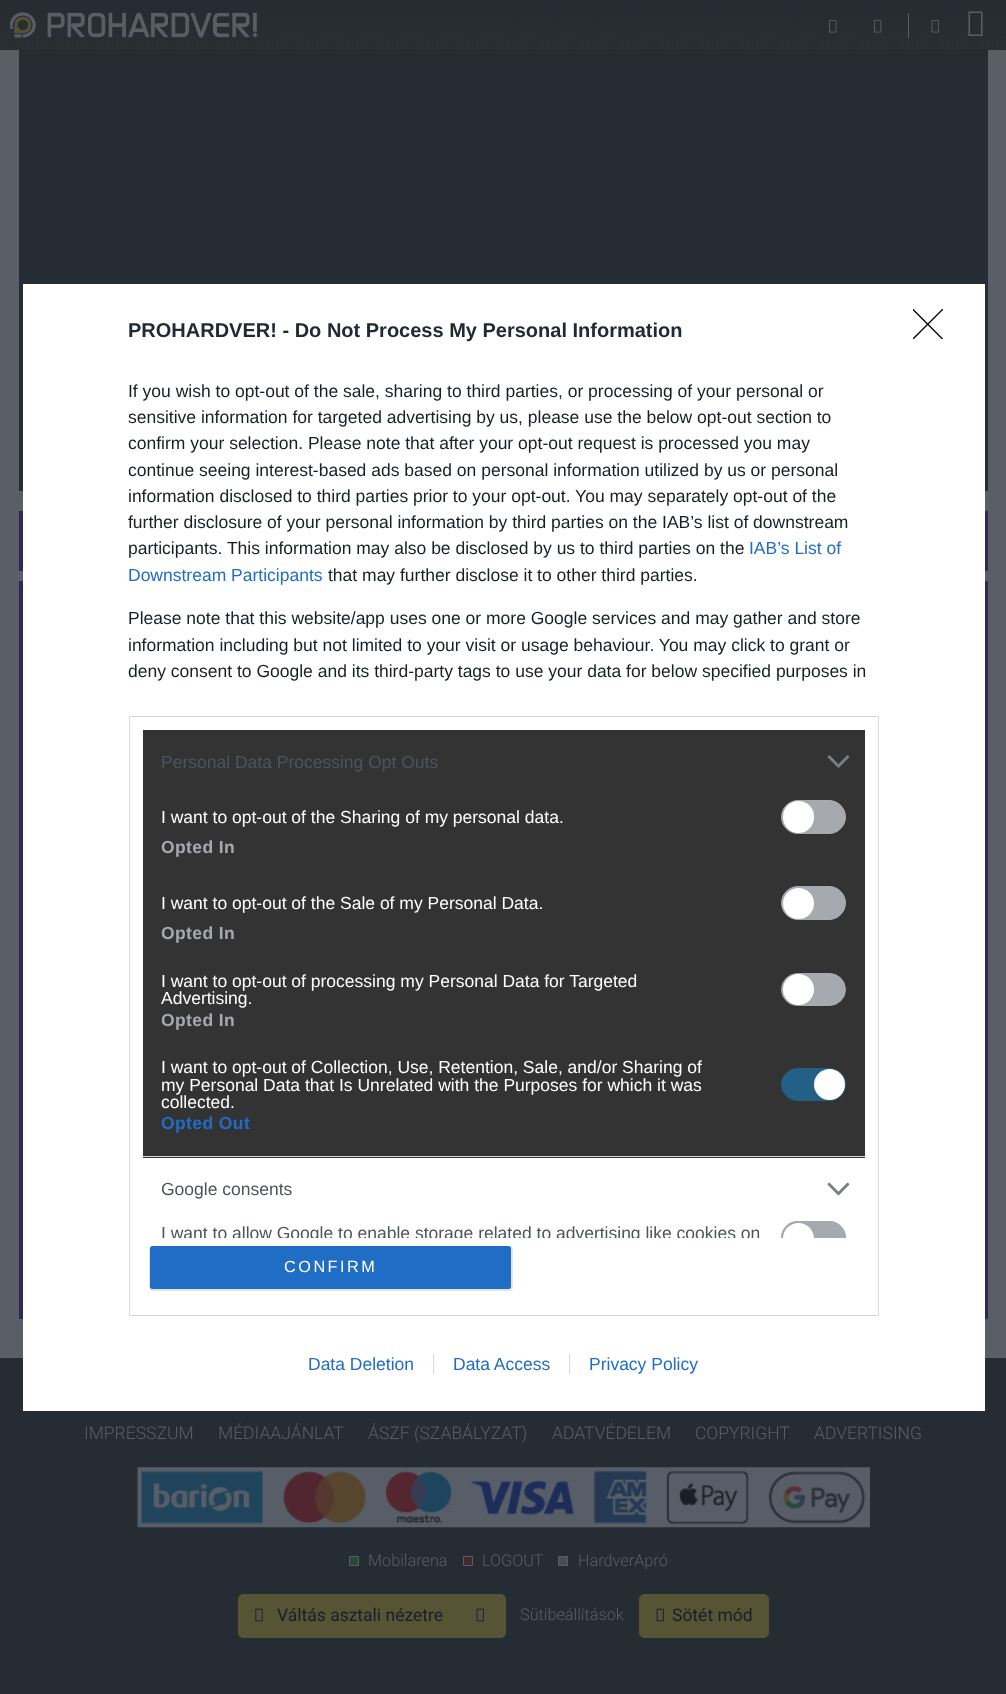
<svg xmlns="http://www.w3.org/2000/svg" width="1006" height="1694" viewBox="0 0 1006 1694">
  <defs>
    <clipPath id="clip1"><path d="M143 1158h722v80H143z"/></clipPath>
    <clipPath id="clip2"><path d="M913 309h30v30H913z"/></clipPath>
  </defs>
  <rect width="100%" height="100%" fill="#262c34"/>
  <image x="0" y="0" width="1006" height="50" href="img/1.png"/>
  <image x="10" y="12" width="248" height="26" href="img/2.png"/>
  <image x="829" y="20" width="8" height="13" href="img/3.png"/>
  <image x="874" y="20" width="8" height="13" href="img/4.png"/>
  <path d="M908 13h1v25H908z" fill="#595f67"/>
  <image x="931" y="20" width="8" height="13" href="img/5.png"/>
  <path d="M968.5 36V11.5H982.5V36ZM970 34.5H981V13H970Z" fill="#595f67"/>
  <path d="M0 50h1006v1308H0z" fill="#595f67"/>
  <path d="M19 50h969v441H19z" fill="#262c34"/>
  <path d="M19 511h969v60H19z" fill="#312754"/>
  <path d="M19 581h969v738H19z" fill="#312754"/>
  <path d="M23 284h962v1127H23z" fill="#fff"/>
  <path d="M129.5 716.5h749v599H129.5z" fill="none" stroke="#d8d8d8"/>
  <path d="M143 730h722v428H143z" fill="#333"/>
  <path d="M143 1156h722v1H143z" fill="#d8d8d8"/>
  <image x="827" y="755" width="23" height="13" href="img/6.png"/>
  <rect x="781.5" y="800.5" width="64" height="33" rx="16.5" fill="#a6a9ae" stroke="#a6a9ae"/>
  <rect x="783" y="801" width="31" height="32" rx="15.5" fill="#fff"/>
  <rect x="781.5" y="886.5" width="64" height="33" rx="16.5" fill="#a6a9ae" stroke="#a6a9ae"/>
  <circle cx="798.5" cy="903.5" r="15.5" fill="#fff"/>
  <rect x="781.5" y="973.5" width="64" height="32" rx="16" fill="#a6a9ae" stroke="#a6a9ae"/>
  <circle cx="798.5" cy="989.5" r="15.5" fill="#fff"/>
  <rect x="781.5" y="1068.5" width="64" height="32" rx="16" fill="#236085" stroke="#236085"/>
  <circle cx="829.5" cy="1084.5" r="15.5" fill="#fff"/>
  <image x="827" y="1182" width="23" height="14" href="img/7.png"/>
  <path d="M798 1221H829C838.5 1221 846 1228.5 846 1238H781C781 1228.5 788.5 1221 798 1221Z" fill="#a6a9ae"/>
  <g clip-path="url(#clip1)">
    <rect x="781.5" y="1221.5" width="64" height="33" rx="16.5" fill="none" stroke="#a6a9ae"/>
  </g>
  <path d="M798.5 1223C807 1223 814 1230 814 1238.5V1238H783V1238.5C783 1230 790 1223 798.5 1223Z" fill="#fff"/>
  <rect x="149" y="1246" width="364" height="45" rx="4" fill="#0000001a" filter="blur(0.5px)"/>
  <rect x="150" y="1246" width="361" height="43" rx="2.5" fill="#206dc5"/>
  <g clip-path="url(#clip2)">
    <path d="M913 309.5L942.5 339M942.5 309.5L913 339" fill="none" stroke="#000" stroke-width="1.3" stroke-linecap="round" stroke-linejoin="round"/>
  </g>
  <path d="M433 1354h1v20H433z" fill="#d8d8d8"/>
  <path d="M569 1354h1v20H569z" fill="#d8d8d8"/>
  <image x="137" y="1467" width="733" height="61" href="img/8.png"/>
  <path d="M349.5 1556.5h9v9H349.5z" fill="#2b4832" stroke="#595f67"/>
  <path d="M463.5 1556.5h9v9H463.5z" fill="#462730" stroke="#595f67"/>
  <path d="M558.5 1556.5h9v9H558.5z" fill="#4b4e50" stroke="#595f67"/>
  <path d="M243 1594.5H459.5V1637.5H243C240.5 1637.5 238.5 1635.5 238.5 1633V1599C238.5 1596.5 240.5 1594.5 243 1594.5Z" fill="#575335" stroke="#575335"/>
  <image x="255" y="1608" width="8" height="14" href="img/9.png"/>
  <path d="M459.5 1594.5H501C503.5 1594.5 505.5 1596.5 505.5 1599V1633C505.5 1635.5 503.5 1637.5 501 1637.5H459.5Z" fill="#575335" stroke="#575335"/>
  <image x="476" y="1608" width="8" height="14" href="img/10.png"/>
  <rect x="639.5" y="1594.5" width="129" height="43" rx="4.5" fill="#575335" stroke="#575335"/>
  <image x="656" y="1608" width="8" height="14" href="img/10.png"/>
  <text x="128" y="337" font-family="Liberation Sans" font-size="20" font-weight="bold" fill="#212934">PROHARDVER! - Do Not Process My Personal Information</text>
  <g font-family="Liberation Sans" font-size="17.5" fill="#191f27">
    <text x="128" y="397">If you wish to opt-out of the sale, sharing to third parties, or processing of your personal or</text>
    <text x="128" y="423">sensitive information for targeted advertising by us, please use the below opt-out section to</text>
    <text x="128" y="449">confirm your selection. Please note that after your opt-out request is processed you may</text>
    <text x="128" y="476">continue seeing interest-based ads based on personal information utilized by us or personal</text>
    <text x="128" y="502">information disclosed to third parties prior to your opt-out. You may separately opt-out of the</text>
    <text x="128" y="528">further disclosure of your personal information by third parties on the IAB’s list of downstream</text>
    <text x="128" y="554">participants. This information may also be disclosed by us to third parties on the</text>
  </g>
  <g font-family="Liberation Sans" font-size="17.5" fill="#206dc5">
    <text x="749" y="554">IAB’s List of</text>
    <text x="128" y="581">Downstream Participants</text>
  </g>
  <g font-family="Liberation Sans" font-size="17.5" fill="#191f27">
    <text x="328" y="581">that may further disclose it to other third parties.</text>
    <text x="128" y="624">Please note that this website/app uses one or more Google services and may gather and store</text>
    <text x="128" y="651">information including but not limited to your visit or usage behaviour. You may click to grant or</text>
    <text x="128" y="677">deny consent to Google and its third-party tags to use your data for below specified purposes in</text>
  </g>
  <text x="161" y="768" font-family="Liberation Sans" font-size="17.5" fill="#4d545d">Personal Data Processing Opt Outs</text>
  <text x="161" y="823" font-family="Liberation Sans" font-size="17.5" fill="#fff">I want to opt-out of the Sharing of my personal data.</text>
  <text x="161" y="853" font-family="Liberation Sans" font-size="17.5" font-weight="bold" letter-spacing="0.4" fill="#a6a9ae">Opted In</text>
  <text x="161" y="909" font-family="Liberation Sans" font-size="17.5" fill="#fff">I want to opt-out of the Sale of my Personal Data.</text>
  <text x="161" y="939" font-family="Liberation Sans" font-size="17.5" font-weight="bold" letter-spacing="0.4" fill="#a6a9ae">Opted In</text>
  <g font-family="Liberation Sans" font-size="17.5" fill="#fff">
    <text x="161" y="987">I want to opt-out of processing my Personal Data for Targeted</text>
    <text x="161" y="1004">Advertising.</text>
  </g>
  <text x="161" y="1026" font-family="Liberation Sans" font-size="17.5" font-weight="bold" letter-spacing="0.4" fill="#a6a9ae">Opted In</text>
  <g font-family="Liberation Sans" font-size="17.5" fill="#fff">
    <text x="161" y="1073">I want to opt-out of Collection, Use, Retention, Sale, and/or Sharing of</text>
    <text x="161" y="1091">my Personal Data that Is Unrelated with the Purposes for which it was</text>
    <text x="161" y="1108">collected.</text>
  </g>
  <text x="161" y="1129" font-family="Liberation Sans" font-size="17.5" font-weight="bold" letter-spacing="0.4" fill="#206dc5">Opted Out</text>
  <text x="161" y="1195" font-family="Liberation Sans" font-size="17.5" fill="#4d545d">Google consents</text>
  <g clip-path="url(#clip1)">
    <text x="161" y="1239" font-family="Liberation Sans" font-size="17.5" fill="#4d545d">I want to allow Google to enable storage related to advertising like cookies on</text>
  </g>
  <text x="284" y="1272" font-family="Liberation Sans" font-size="16.25" letter-spacing="2.5" fill="#fff">CONFIRM</text>
  <g font-family="Liberation Sans" font-size="17.5" fill="#206dc5">
    <text x="308" y="1370">Data Deletion</text>
    <text x="453" y="1370">Data Access</text>
    <text x="589" y="1370">Privacy Policy</text>
  </g>
  <g font-family="Roboto" font-size="17.5" font-weight="300" fill="#595f67">
    <text x="84" y="1439">IMPRESSZUM</text>
    <text x="218" y="1439">MÉDIAAJÁNLAT</text>
    <text x="368" y="1439">ÁSZF (SZABÁLYZAT)</text>
    <text x="552" y="1439">ADATVÉDELEM</text>
    <text x="695" y="1439">COPYRIGHT</text>
    <text x="814" y="1439">ADVERTISING</text>
  </g>
  <g font-family="Roboto" font-size="16.25" font-weight="300" fill="#595f67">
    <text x="368" y="1566">Mobilarena</text>
    <text x="482" y="1566">LOGOUT</text>
    <text x="578" y="1566">HardverApró</text>
  </g>
  <text x="277" y="1621" font-family="Roboto" font-size="17.5" fill="#191f27">Váltás asztali nézetre</text>
  <text x="520" y="1620" font-family="Roboto" font-size="16.25" font-weight="300" fill="#595f67">Sütibeállítások</text>
  <text x="672" y="1621" font-family="Roboto" font-size="17.5" fill="#191f27">Sötét mód</text>
</svg>
